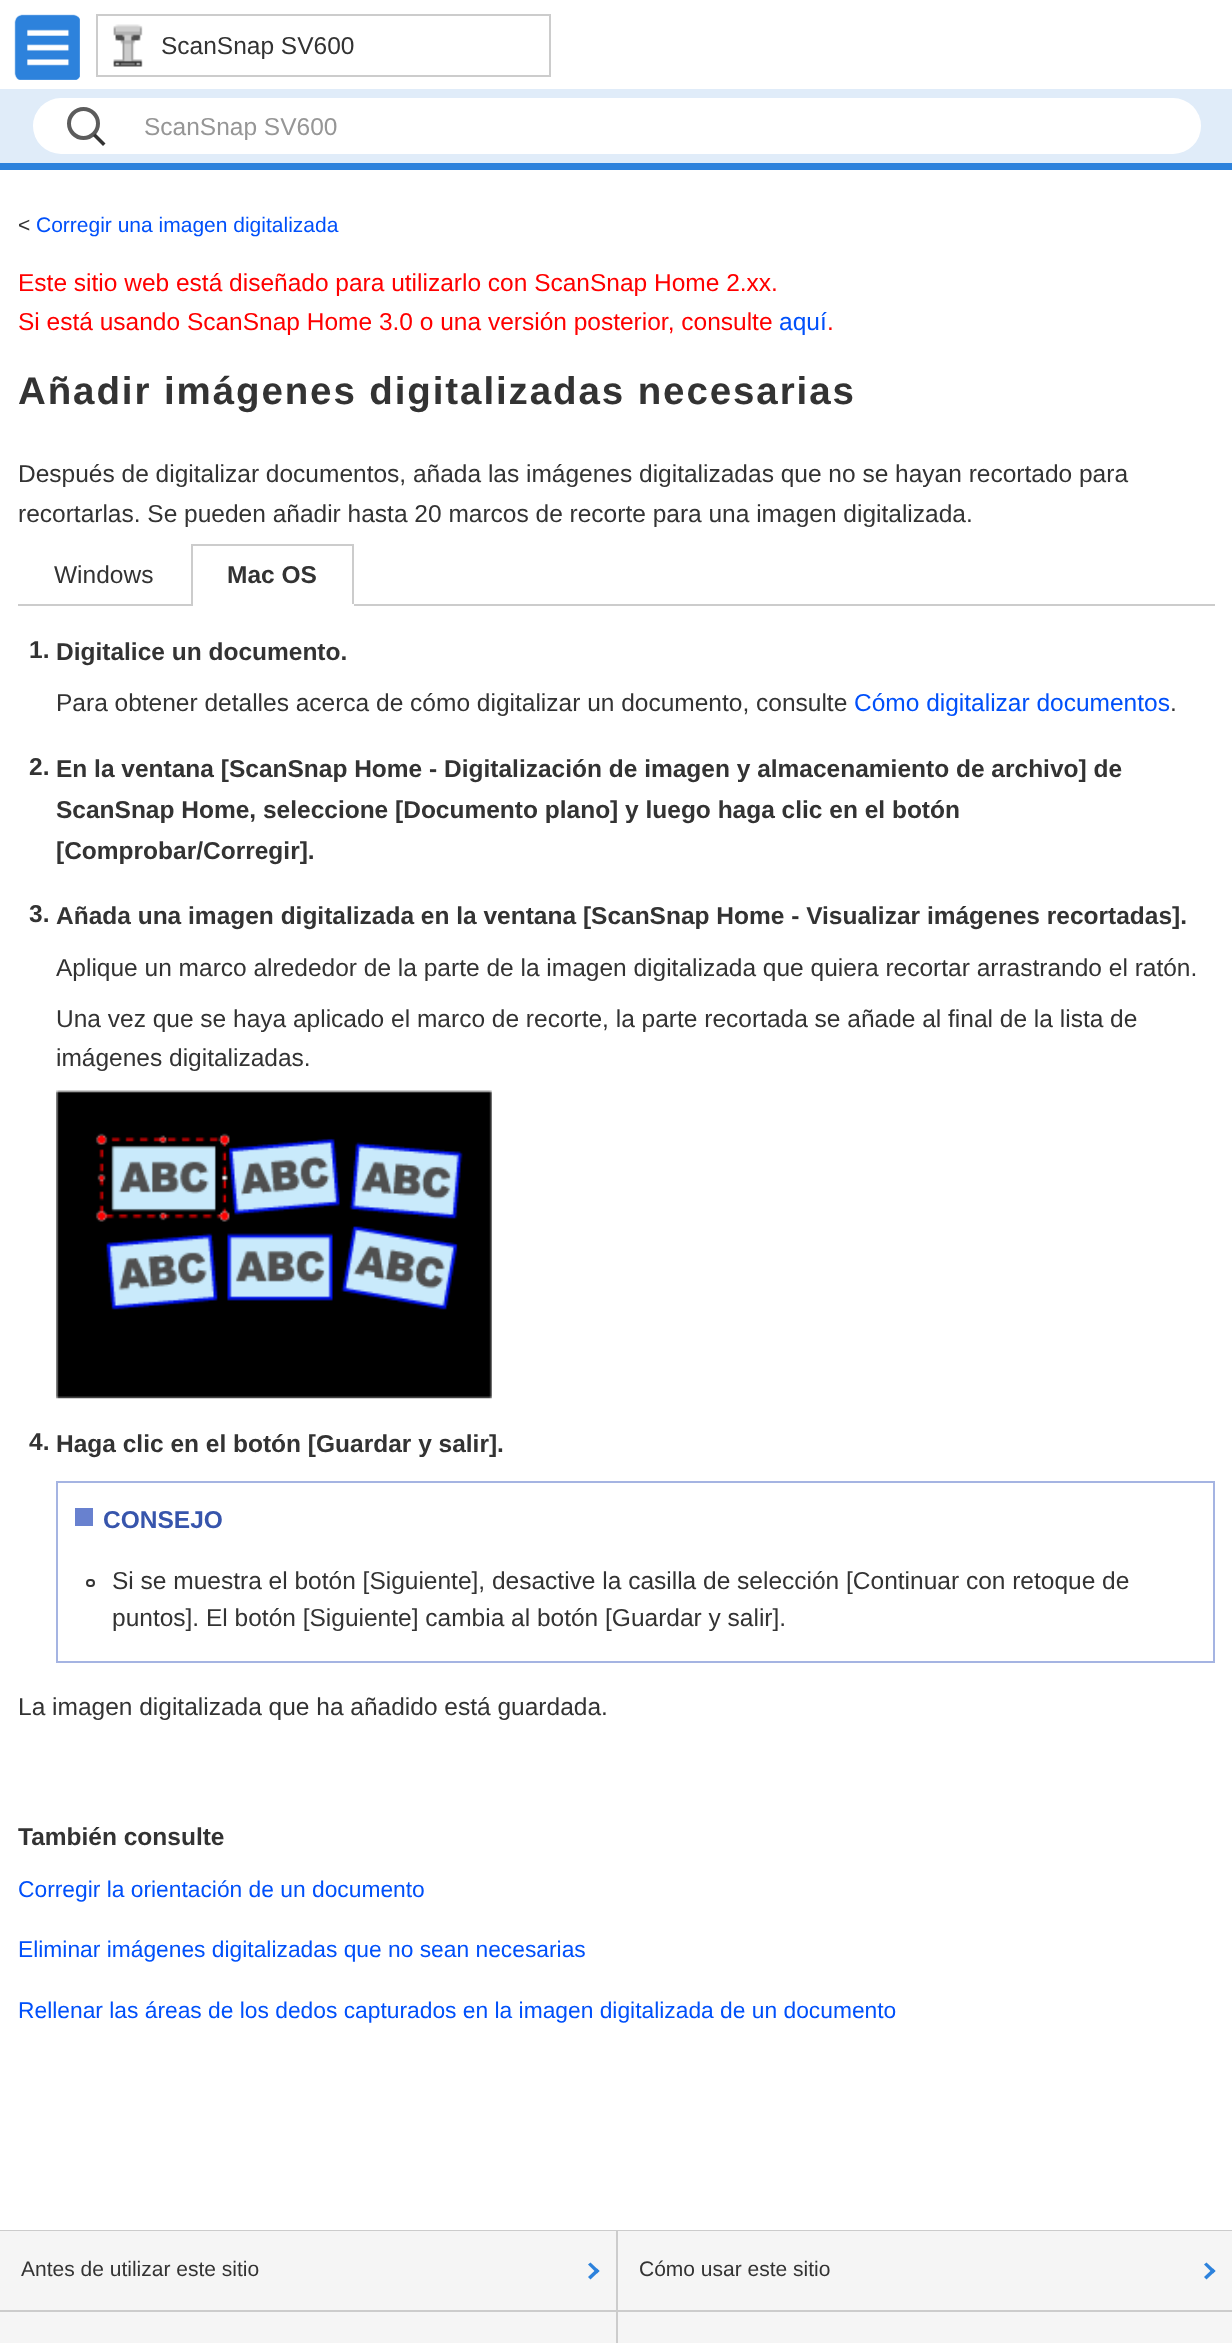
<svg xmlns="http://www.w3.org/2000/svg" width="1232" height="2343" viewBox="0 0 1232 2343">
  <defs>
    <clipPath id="clip1"><path d="M18 170h1197v1963H18z"/></clipPath>
  </defs>
  <rect width="100%" height="100%" fill="#fff"/>
  <path d="M0 163h1232v7H0z" fill="#2d82dc"/>
  <image x="14" y="14" width="66" height="66" href="img/1.png"/>
  <image x="14" y="14" width="66" height="66" href="img/2.png"/>
  <image x="113" y="24" width="30" height="43" href="img/3.png"/>
  <path d="M97 15h453v61H97z" fill="none" stroke="#ccc" stroke-width="2"/>
  <path d="M0 89h1232v74H0z" fill="#e0ecf9"/>
  <rect x="33" y="98" width="1168" height="56" rx="28" fill="#fff"/>
  <circle cx="83.5" cy="123.5" r="14.5" fill="none" stroke="#5c5c5c" stroke-width="4"/>
  <path d="M95.5 133.5L105.5 143.5L103 146L93 136Z" fill="#333"/>
  <path d="M191 544h163v2H191z" fill="#ccc"/>
  <path d="M18 604h1197v2H18z" fill="#ccc"/>
  <path d="M352 544h2v62H352z" fill="#ccc"/>
  <path d="M191 604h163v2H191z" fill="#fff"/>
  <path d="M191 544h2v62H191z" fill="#ccc"/>
  <image x="56" y="1090" width="436" height="309" href="img/4.png"/>
  <path d="M57 1482h1157v180H57z" fill="none" stroke="#a5b4e2" stroke-width="2"/>
  <path d="M75 1508h18v18H75z" fill="#6881cf"/>
  <rect x="87" y="1580" width="7" height="6" rx="3" fill="none" stroke="#333" stroke-width="2"/>
  <path d="M0 2230h1232v1H0z" fill="#ccc"/>
  <path d="M0 2231h616v79H0z" fill="#f5f5f5"/>
  <path d="M0 2310h1232v2H0z" fill="#ccc"/>
  <path d="M590.5 2262.5L599.5 2271L597 2273.5L588 2264.5Z" fill="#2d82dc"/>
  <path d="M597 2268.5L599.5 2271L590.5 2279.5L588 2277Z" fill="#2d82dc"/>
  <path d="M618 2231h614v79H618z" fill="#f5f5f5"/>
  <path d="M616 2231h2v112H616z" fill="#ccc"/>
  <path d="M1206.5 2262.5L1215.5 2271L1213 2273.5L1204 2264.5Z" fill="#2d82dc"/>
  <path d="M1213 2268.5L1215.5 2271L1206.5 2279.5L1204 2277Z" fill="#2d82dc"/>
  <path d="M0 2312h616v31H0z" fill="#f5f5f5"/>
  <path d="M618 2312h614v31H618z" fill="#f5f5f5"/>
  <text x="161" y="54" font-family="Liberation Sans" font-size="24.5" fill="#333">ScanSnap SV600</text>
  <text x="144" y="135" font-family="Liberation Sans" font-size="24.5" fill="#969696">ScanSnap SV600</text>
  <text x="18" y="232" font-family="Liberation Sans" font-size="21" fill="#333">&lt;</text>
  <text x="36" y="232" font-family="Liberation Sans" font-size="21" fill="#0050fa">Corregir una imagen digitalizada</text>
  <g font-family="Liberation Sans" font-size="24.5" fill="#f00">
    <text x="18" y="291">Este sitio web está diseñado para utilizarlo con ScanSnap Home 2.xx.</text>
    <text x="18" y="330">Si está usando ScanSnap Home 3.0 o una versión posterior, consulte</text>
  </g>
  <text x="779" y="330" font-family="Liberation Sans" font-size="24.5" fill="#0050fa">aquí</text>
  <text x="827" y="330" font-family="Liberation Sans" font-size="24.5" fill="#f00">.</text>
  <text x="18" y="404" font-family="Liberation Sans" font-size="38.5" font-weight="bold" letter-spacing="1.9" fill="#333">Añadir imágenes digitalizadas necesarias</text>
  <g font-family="Liberation Sans" font-size="24.5" fill="#333">
    <text x="18" y="482">Después de digitalizar documentos, añada las imágenes digitalizadas que no se hayan recortado para</text>
    <text x="18" y="522">recortarlas. Se pueden añadir hasta 20 marcos de recorte para una imagen digitalizada.</text>
    <text x="54" y="583">Windows</text>
  </g>
  <g font-family="Liberation Sans" font-size="24.5" font-weight="bold" fill="#333">
    <text x="227" y="583">Mac OS</text>
    <text x="29" y="658">1.</text>
    <text x="56" y="660">Digitalice un documento.</text>
  </g>
  <text x="56" y="711" font-family="Liberation Sans" font-size="24.5" fill="#333">Para obtener detalles acerca de cómo digitalizar un documento, consulte</text>
  <text x="854" y="711" font-family="Liberation Sans" font-size="24.5" fill="#0050fa">Cómo digitalizar documentos</text>
  <text x="1170" y="711" font-family="Liberation Sans" font-size="24.5" fill="#333">.</text>
  <g font-family="Liberation Sans" font-size="24.5" font-weight="bold" fill="#333">
    <text x="29" y="775">2.</text>
    <text x="56" y="777">En la ventana [ScanSnap Home - Digitalización de imagen y almacenamiento de archivo] de</text>
    <text x="56" y="818">ScanSnap Home, seleccione [Documento plano] y luego haga clic en el botón</text>
    <text x="56" y="859">[Comprobar/Corregir].</text>
    <text x="29" y="922">3.</text>
    <text x="56" y="924">Añada una imagen digitalizada en la ventana [ScanSnap Home - Visualizar imágenes recortadas].</text>
  </g>
  <g font-family="Liberation Sans" font-size="24.5" fill="#333">
    <text x="56" y="976">Aplique un marco alrededor de la parte de la imagen digitalizada que quiera recortar arrastrando el ratón.</text>
    <text x="56" y="1027">Una vez que se haya aplicado el marco de recorte, la parte recortada se añade al final de la lista de</text>
    <text x="56" y="1066">imágenes digitalizadas.</text>
  </g>
  <g font-family="Liberation Sans" font-size="24.5" font-weight="bold" fill="#333">
    <text x="29" y="1450">4.</text>
    <text x="56" y="1452">Haga clic en el botón [Guardar y salir].</text>
  </g>
  <text x="103" y="1528" font-family="Liberation Sans" font-size="24.5" font-weight="bold" fill="#3755ac">CONSEJO</text>
  <g font-family="Liberation Sans" font-size="24.5" fill="#333">
    <text x="112" y="1589">Si se muestra el botón [Siguiente], desactive la casilla de selección [Continuar con retoque de</text>
    <text x="112" y="1626">puntos]. El botón [Siguiente] cambia al botón [Guardar y salir].</text>
    <text x="18" y="1715">La imagen digitalizada que ha añadido está guardada.</text>
  </g>
  <g clip-path="url(#clip1)">
    <text x="18" y="1845" font-family="Liberation Sans" font-size="24.5" font-weight="bold" fill="#333">También consulte</text>
  </g>
  <g font-family="Liberation Sans" font-size="22.8" fill="#0050fa">
    <text x="18" y="1897">Corregir la orientación de un documento</text>
    <text x="18" y="1957">Eliminar imágenes digitalizadas que no sean necesarias</text>
    <text x="18" y="2018">Rellenar las áreas de los dedos capturados en la imagen digitalizada de un documento</text>
  </g>
  <g font-family="Liberation Sans" font-size="21" fill="#333">
    <text x="21" y="2276">Antes de utilizar este sitio</text>
    <text x="639" y="2276">Cómo usar este sitio</text>
  </g>
</svg>
